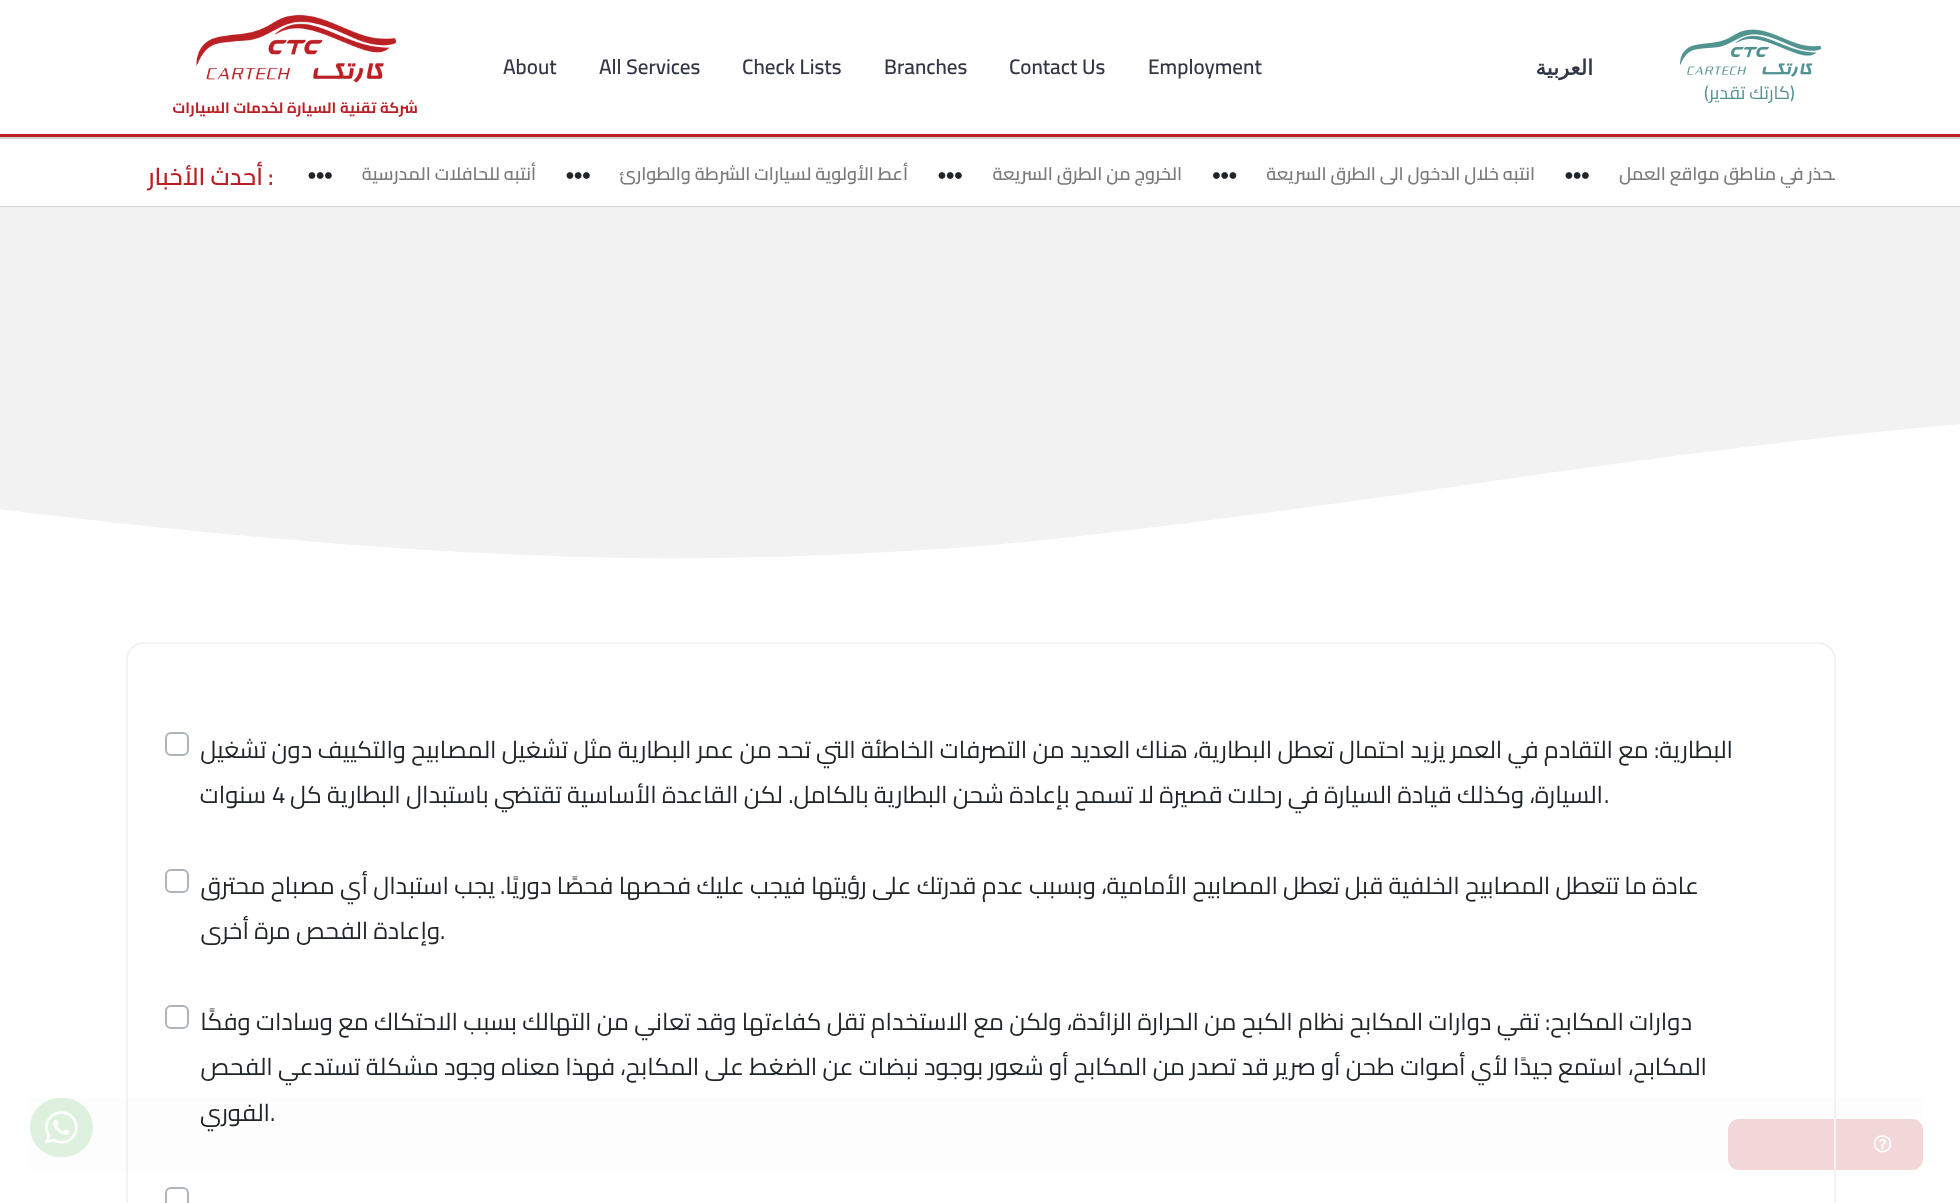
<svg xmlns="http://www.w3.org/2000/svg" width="1960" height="1203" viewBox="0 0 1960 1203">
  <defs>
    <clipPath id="clip1"><path d="M296 146h1539v60H296z"/></clipPath>
  </defs>
  <rect width="100%" height="100%" fill="#fff"/>
  <path d="M0 134h1960v3H0z" fill="#ba2025"/>
  <image x="1680" y="29" width="141" height="48" href="img/1.png"/>
  <image x="196" y="15" width="200" height="68" href="img/2.png"/>
  <path d="M0 137h1960v2H0z" fill="#d3d3d3"/>
  <path d="M0 206h1960v1H0z" fill="#d3d3d3"/>
  <image x="1565" y="172" width="24" height="7" href="img/3.png"/>
  <image x="1213" y="172" width="24" height="7" href="img/4.png"/>
  <image x="938" y="172" width="24" height="7" href="img/3.png"/>
  <image x="566" y="172" width="24" height="7" href="img/3.png"/>
  <image x="308" y="172" width="24" height="7" href="img/3.png"/>
  <rect x="1729" y="1120" width="193" height="49" rx="10" fill="#ba2025" stroke="#ba2025" stroke-width="2"/>
  <image x="1873" y="1135" width="19" height="18" href="img/5.png"/>
  <rect x="30" y="1098" width="63" height="59" rx="29.5" fill="#43b847"/>
  <image x="45" y="1111" width="33" height="33" href="img/6.png"/>
  <path d="M0 207h1960v352H0z" fill="#f2f2f2"/>
  <path d="M583 557C698 561 845 556 968 547C1088 538 1329 505 1480 483C1867 425 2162 403 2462 394C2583 390 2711 387 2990 398C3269 409 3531 444 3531 444V568H-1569V514C-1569 514-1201 455-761 459C-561 460-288 471-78 499C30 514 189 532 329 543C468 554 530 555 583 557Z" fill="#fff"/>
  <path d="M30 1098h1893v72H30z" fill="#fcfcfcd4"/>
  <rect x="127" y="643" width="1708" height="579" rx="17" fill="none" stroke="#f2f2f2" stroke-width="2"/>
  <rect x="166" y="733" width="22" height="22" rx="5" fill="none" stroke="#adb5bd" stroke-width="2"/>
  <rect x="166" y="870" width="22" height="22" rx="5" fill="none" stroke="#adb5bd" stroke-width="2"/>
  <rect x="166" y="1006" width="22" height="22" rx="5" fill="none" stroke="#adb5bd" stroke-width="2"/>
  <rect x="166" y="1188" width="22" height="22" rx="5" fill="none" stroke="#adb5bd" stroke-width="2"/>
  <text x="1593" y="75" font-family="DejaVu Sans" font-size="21" font-weight="bold" direction="rtl" fill="#333645">العربية</text>
  <g font-family="Cairo" font-size="21" font-weight="600" fill="#333645">
    <text x="1148" y="74">Employment</text>
    <text x="1009" y="74">Contact Us</text>
    <text x="884" y="74">Branches</text>
    <text x="742" y="74">Check Lists</text>
    <text x="599" y="74">All Services</text>
    <text x="503" y="74">About</text>
  </g>
  <g font-family="Cairo" font-size="18" fill="#519391">
    <text x="1790" y="99">)</text>
    <text x="1704" y="99">(</text>
  </g>
  <text x="1790" y="99" font-family="Cairo" font-size="18" direction="rtl" fill="#519391">كارتك تقدير</text>
  <text x="418" y="113" font-family="Cairo" font-size="15" font-weight="bold" direction="rtl" fill="#ba2025">شركة تقنية السيارة لخدمات السيارات</text>
  <g clip-path="url(#clip1)">
    <text x="1863" y="180" font-family="Cairo" font-size="18" font-weight="600" direction="rtl" fill="#7a7a7a">قد بحذر في مناطق مواقع العمل</text>
  </g>
  <g font-family="Cairo" font-size="18" font-weight="600" direction="rtl" fill="#7a7a7a">
    <text x="1535" y="180">انتبه خلال الدخول الى الطرق السريعة</text>
    <text x="1182" y="180">الخروج من الطرق السريعة</text>
    <text x="908" y="180">أعط الأولوية لسيارات الشرطة والطوارئ</text>
    <text x="536" y="180">أنتبه للحافلات المدرسية</text>
  </g>
  <text x="268" y="185" font-family="Cairo" font-size="24" font-weight="600" fill="#ba2025">:</text>
  <text x="263" y="185" font-family="Cairo" font-size="24" font-weight="600" direction="rtl" fill="#ba2025">أحدث الأخبار</text>
  <text x="1733" y="758" font-family="Cairo" font-size="24" direction="rtl" fill="#212529">البطارية: مع التقادم في العمر يزيد احتمال تعطل البطارية، هناك العديد من التصرفات الخاطئة التي تحد من عمر البطارية مثل تشغيل المصابيح والتكييف دون تشغيل</text>
  <text x="1604" y="803" font-family="Cairo" font-size="24" fill="#212529">.</text>
  <text x="1603" y="803" font-family="Cairo" font-size="24" direction="rtl" fill="#212529">السيارة، وكذلك قيادة السيارة في رحلات قصيرة لا تسمح بإعادة شحن البطارية بالكامل. لكن القاعدة الأساسية تقتضي باستبدال البطارية كل</text>
  <text x="272" y="803" font-family="Cairo" font-size="24" fill="#212529">4</text>
  <g font-family="Cairo" font-size="24" direction="rtl" fill="#212529">
    <text x="266" y="803">سنوات</text>
    <text x="1699" y="894">عادة ما تتعطل المصابيح الخلفية قبل تعطل المصابيح الأمامية، وبسبب عدم قدرتك على رؤيتها فيجب عليك فحصها فحصًا دوريًا. يجب استبدال أي مصباح محترق</text>
  </g>
  <text x="440" y="939" font-family="Cairo" font-size="24" fill="#212529">.</text>
  <g font-family="Cairo" font-size="24" direction="rtl" fill="#212529">
    <text x="440" y="939">وإعادة الفحص مرة أخرى</text>
    <text x="1692" y="1030">دوارات المكابح: تقي دوارات المكابح نظام الكبح من الحرارة الزائدة، ولكن مع الاستخدام تقل كفاءتها وقد تعاني من التهالك بسبب الاحتكاك مع وسادات وفكًا</text>
    <text x="1707" y="1075">المكابح، استمع جيدًا لأي أصوات طحن أو صرير قد تصدر من المكابح أو شعور بوجود نبضات عن الضغط على المكابح، فهذا معناه وجود مشكلة تستدعي الفحص</text>
  </g>
  <text x="270" y="1121" font-family="Cairo" font-size="24" fill="#212529">.</text>
  <text x="270" y="1121" font-family="Cairo" font-size="24" direction="rtl" fill="#212529">الفوري</text>
</svg>
